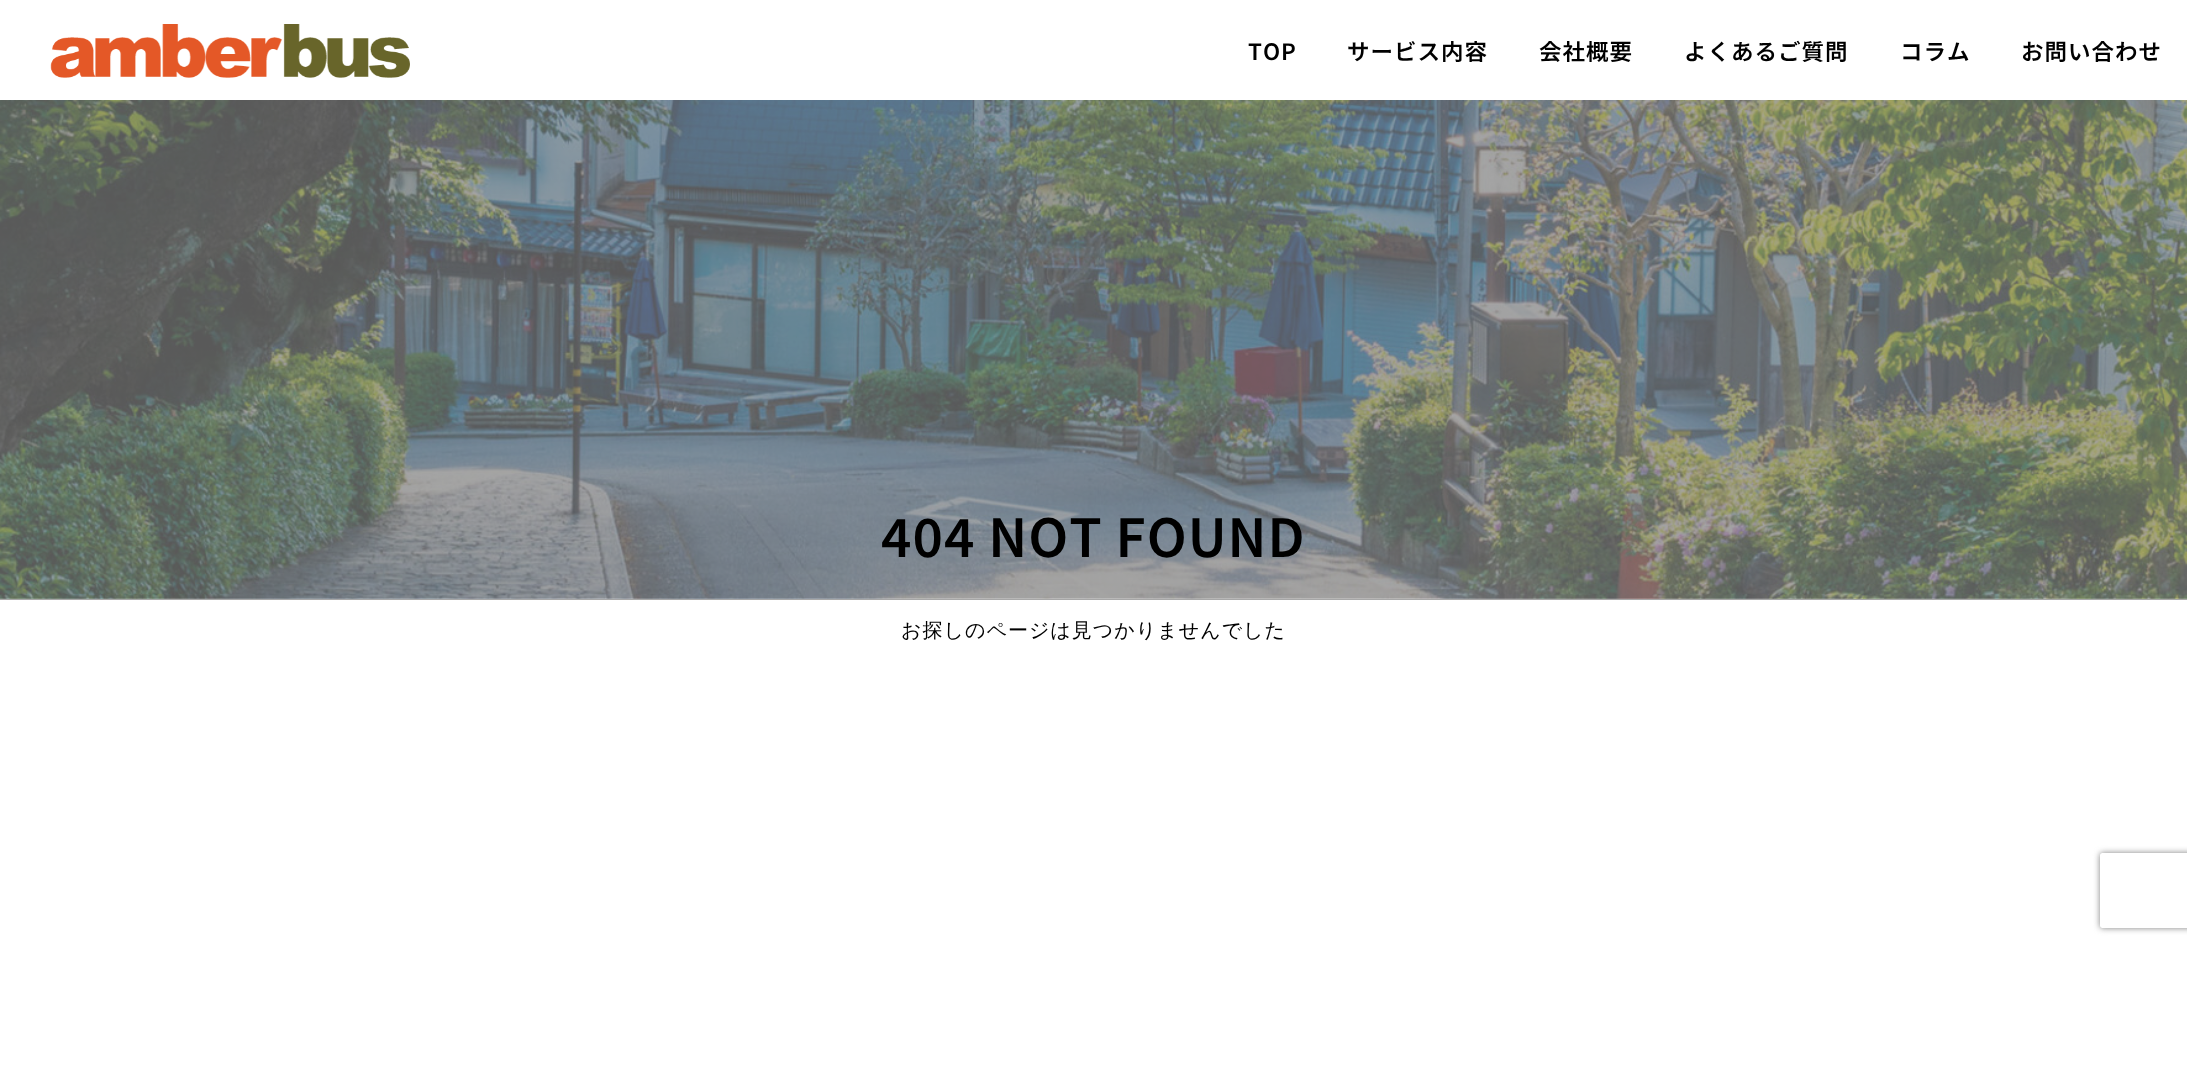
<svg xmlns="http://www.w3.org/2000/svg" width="2187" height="1071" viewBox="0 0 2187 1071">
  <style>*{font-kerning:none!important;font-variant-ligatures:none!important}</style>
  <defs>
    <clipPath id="clip1"><path d="M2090 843H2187V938H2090ZM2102.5 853H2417.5C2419 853 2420 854 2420 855.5V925.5C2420 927 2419 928 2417.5 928H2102.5C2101 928 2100 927 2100 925.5V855.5C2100 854 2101 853 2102.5 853Z" clip-rule="evenodd"/></clipPath>
  </defs>
  <rect width="100%" height="100%" fill="#fff"/>
  <image x="50" y="24" width="360" height="54" href="img/1.png"/>
  <image x="0" y="100" width="2187" height="499" href="img/2.png"/>
  <path d="M0 599h2187v1H0z" fill="#a7a7a7"/>
  <g clip-path="url(#clip1)">
    <rect x="2100" y="853" width="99" height="75" rx="2.5" fill="#808080" filter="blur(3px)"/>
  </g>
  <g font-family="Noto Sans JP" font-size="22.5" font-weight="600" letter-spacing="1" fill="#000">
    <text x="1248" y="60">TOP</text>
    <text x="1347" y="60">サービス内容</text>
    <text x="1539" y="60">会社概要</text>
    <text x="1684" y="60">よくあるご質問</text>
    <text x="1900" y="60">コラム</text>
    <text x="2021" y="60">お問い合わせ</text>
  </g>
  <text x="881" y="557" font-family="Noto Sans JP" font-size="52.5" font-weight="600" letter-spacing="1" fill="#000">404 NOT FOUND</text>
  <text x="901" y="637" font-family="WenQuanYi Zen Hei" font-size="20" font-weight="500" letter-spacing="1" fill="#000">お探しのページは見つかりませんでした</text>
</svg>
